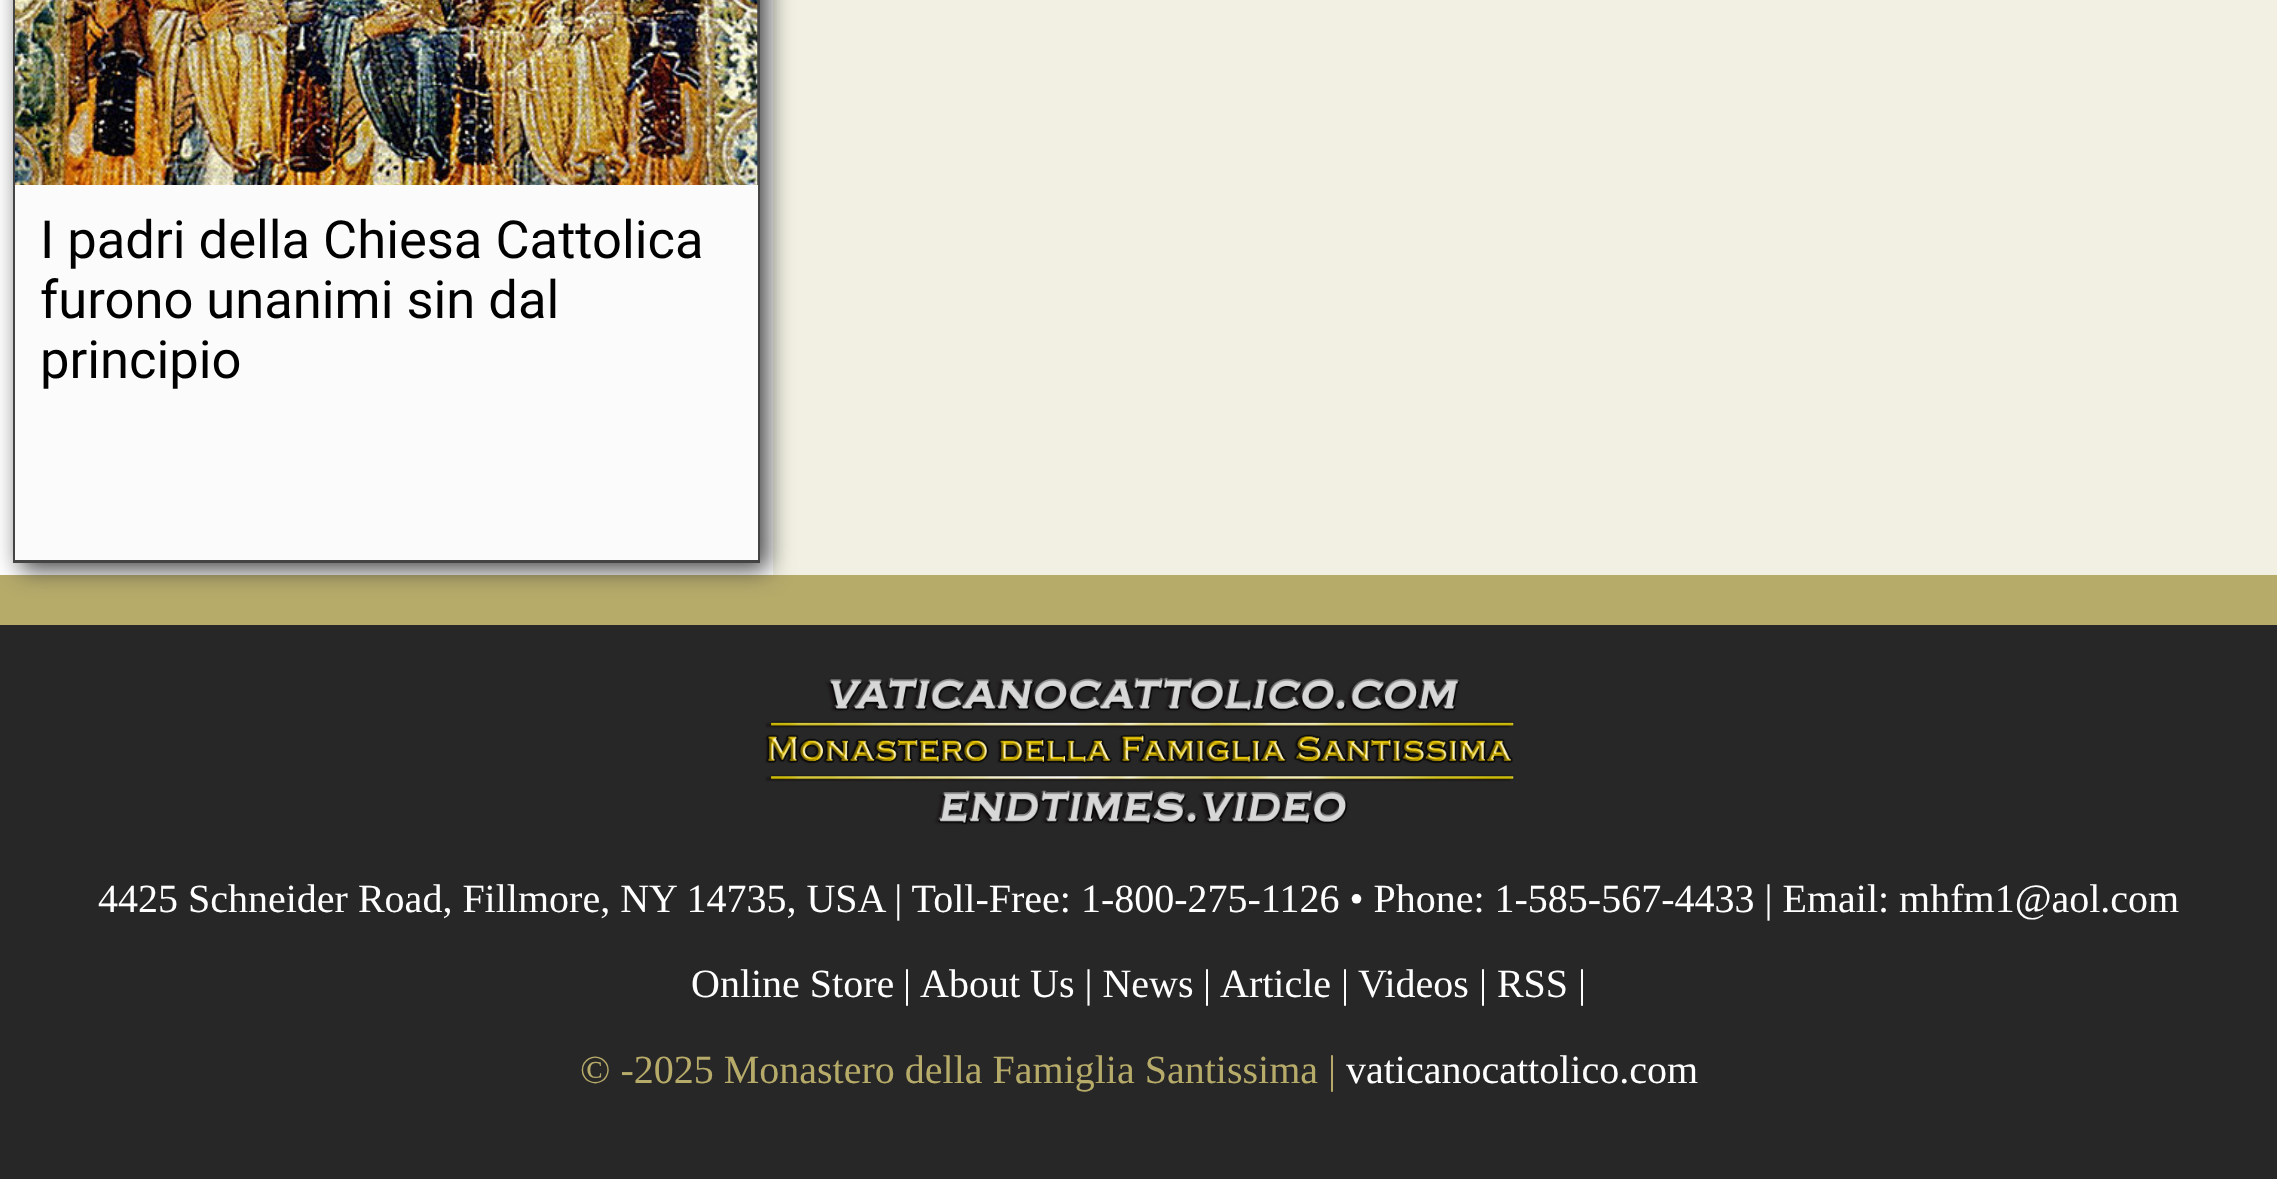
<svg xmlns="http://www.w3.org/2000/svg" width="2277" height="1179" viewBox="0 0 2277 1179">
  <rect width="100%" height="100%" fill="#b7ab6a"/>
  <path d="M773 0h1504v575H773z" fill="#f1f0e2"/>
  <path d="M0 0h773v575H0z" fill="#fff"/>
  <path d="M20 -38h748v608H20z" fill="#444" filter="blur(12.5px)"/>
  <path d="M14.5 -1.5h744v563H14.5z" fill="none" stroke="#444" stroke-width="3"/>
  <image x="15" y="0" width="743" height="185" href="img/1.png"/>
  <path d="M15 185h743v375H15z" fill="#fbfbfb"/>
  <path d="M0 625h2277v554H0z" fill="#272727"/>
  <image x="765" y="677" width="750" height="148" href="img/2.png"/>
  <g font-family="Roboto" font-size="52.5" fill="#000">
    <text x="40" y="258">I padri della Chiesa Cattolica</text>
    <text x="40" y="318">furono unanimi sin dal</text>
    <text x="40" y="378">principio</text>
  </g>
  <g font-family="Liberation Serif" font-size="40" fill="#fff">
    <text x="98" y="912">4425 Schneider Road, Fillmore, NY 14735, USA | Toll-Free: 1-800-275-1126 • Phone: 1-585-567-4433 | Email: mhfm1@aol.com</text>
    <text x="691" y="997">Online Store</text>
    <text x="903" y="997">|</text>
    <text x="920" y="997">About Us | News</text>
    <text x="1203" y="997">|</text>
    <text x="1220" y="997">Article |</text>
    <text x="1358" y="997">Videos | RSS |</text>
  </g>
  <text x="580" y="1083" font-family="Liberation Serif" font-size="40" fill="#b7ab6a">© -2025 Monastero della Famiglia Santissima |</text>
  <text x="1346" y="1083" font-family="Liberation Serif" font-size="40" fill="#fff">vaticanocattolico.com</text>
</svg>
